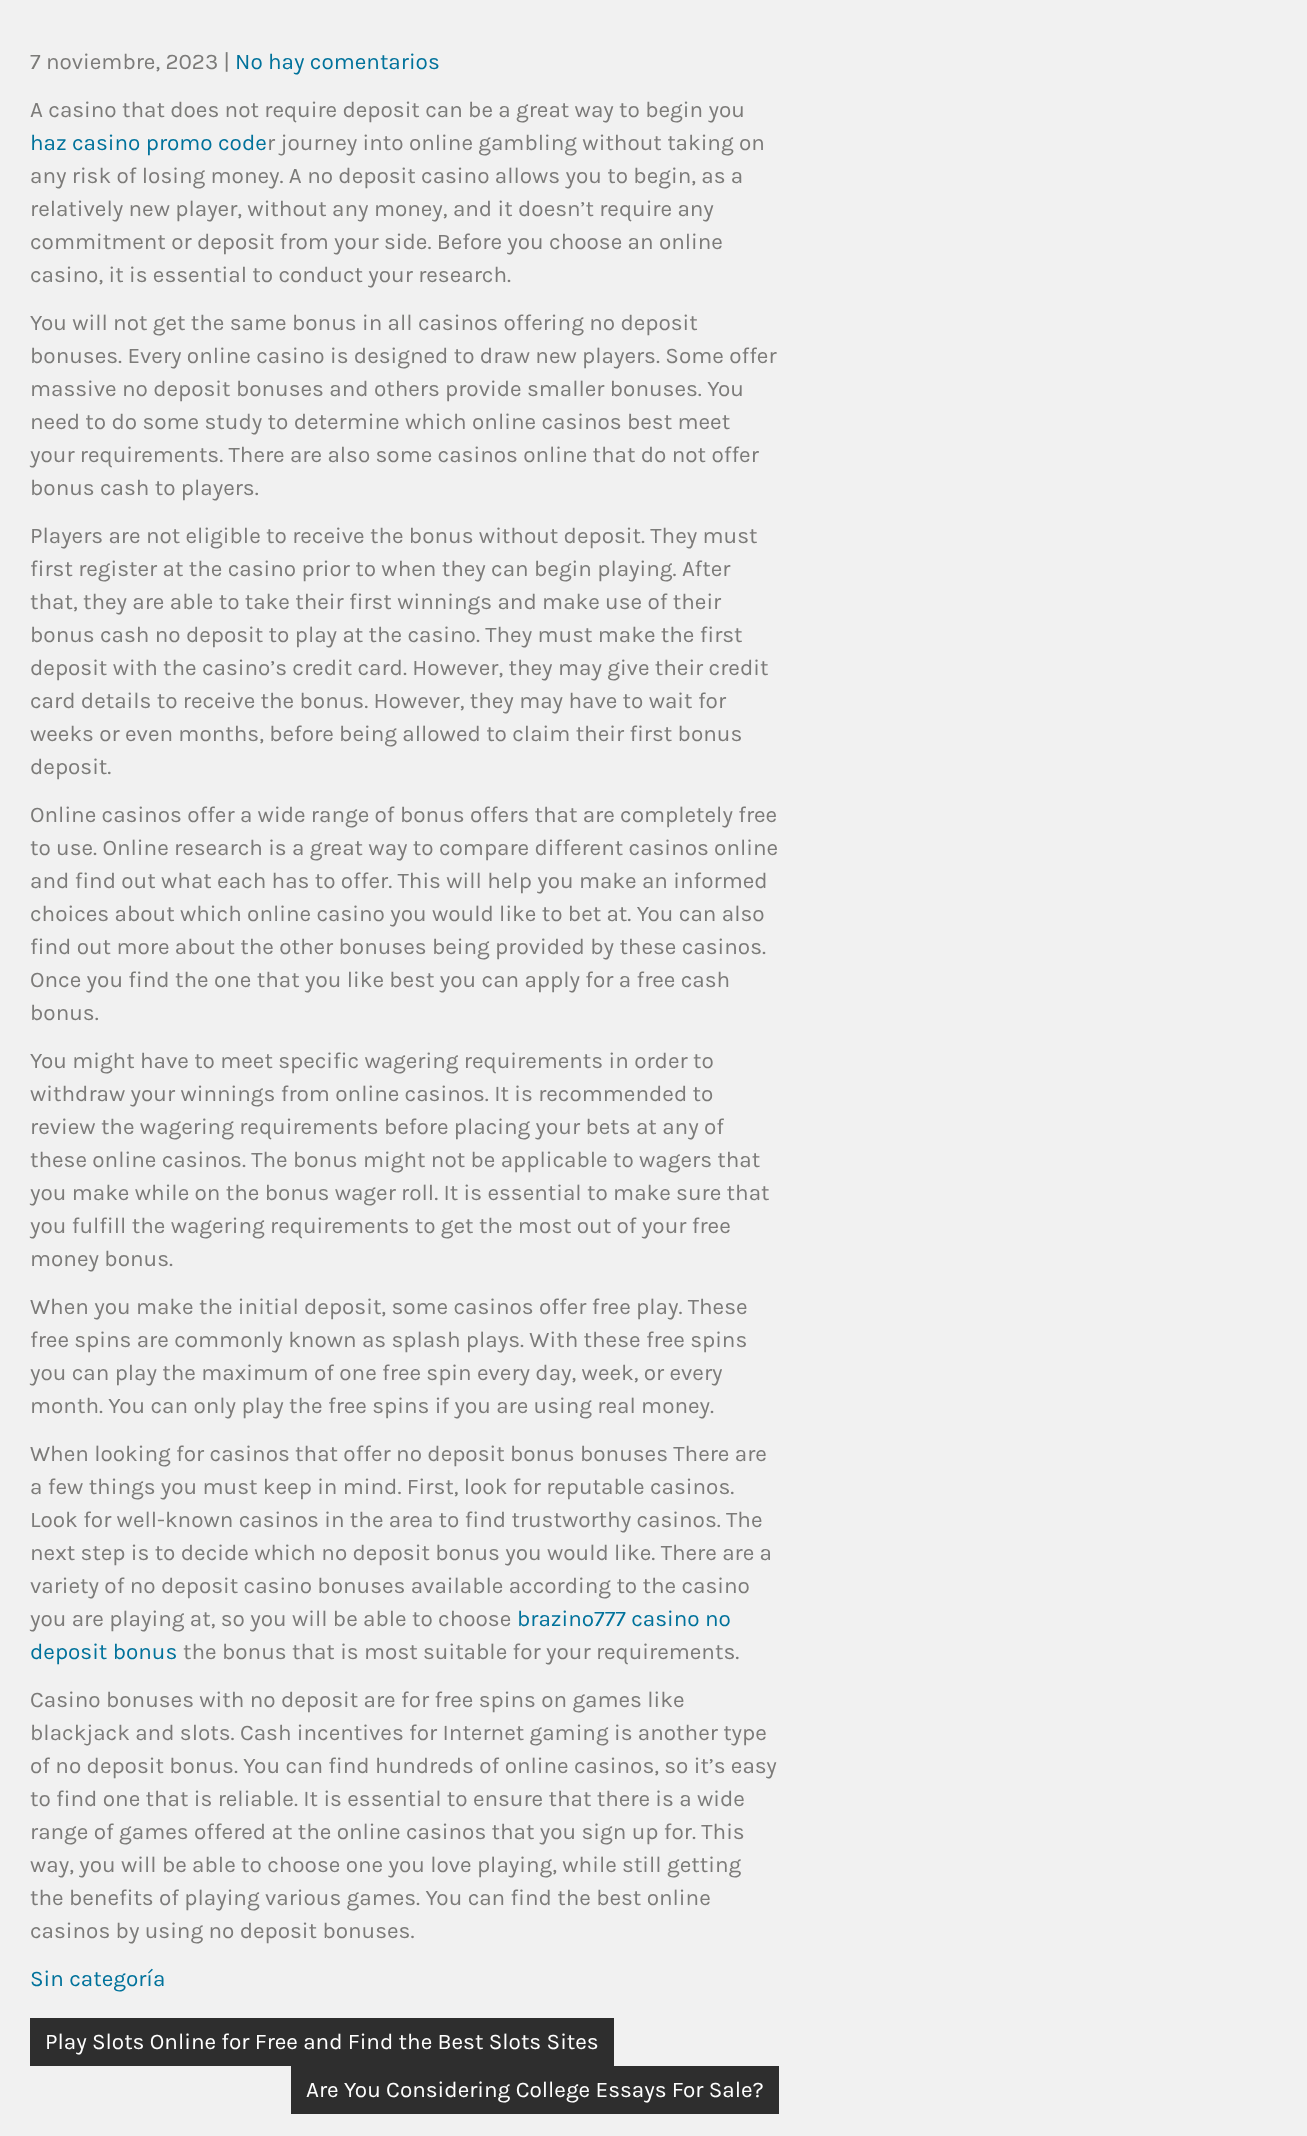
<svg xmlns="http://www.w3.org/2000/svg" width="1307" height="2136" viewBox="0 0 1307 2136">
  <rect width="100%" height="100%" fill="#f1f1f1"/>
  <path d="M30 2018h584v48H30z" fill="#2e2e2e"/>
  <path d="M291 2066h488v48H291z" fill="#2e2e2e"/>
  <text x="30" y="69" font-family="Karla" font-size="22.5" fill="#7c7b79">7 noviembre, 2023 |</text>
  <text x="235" y="69" font-family="Karla" font-size="22.5" fill="#00729b">No hay comentarios</text>
  <text x="30" y="117" font-family="Karla" font-size="22.5" fill="#7c7b79">A casino that does not require deposit can be a great way to begin you</text>
  <text x="30" y="150" font-family="Karla" font-size="22.5" fill="#00729b">haz casino promo code</text>
  <g font-family="Karla" font-size="22.5" fill="#7c7b79">
    <text x="267" y="150">r journey into online gambling without taking on</text>
    <text x="30" y="183">any risk of losing money. A no deposit casino allows you to begin, as a</text>
    <text x="30" y="216">relatively new player, without any money, and it doesn’t require any</text>
    <text x="30" y="249">commitment or deposit from your side. Before you choose an online</text>
    <text x="30" y="282">casino, it is essential to conduct your research.</text>
    <text x="30" y="330">You will not get the same bonus in all casinos offering no deposit</text>
    <text x="30" y="363">bonuses. Every online casino is designed to draw new players. Some offer</text>
    <text x="30" y="396">massive no deposit bonuses and others provide smaller bonuses. You</text>
    <text x="30" y="429">need to do some study to determine which online casinos best meet</text>
    <text x="30" y="462">your requirements. There are also some casinos online that do not offer</text>
    <text x="30" y="495">bonus cash to players.</text>
    <text x="30" y="543">Players are not eligible to receive the bonus without deposit. They must</text>
    <text x="30" y="576">first register at the casino prior to when they can begin playing. After</text>
    <text x="30" y="609">that, they are able to take their first winnings and make use of their</text>
    <text x="30" y="642">bonus cash no deposit to play at the casino. They must make the first</text>
    <text x="30" y="675">deposit with the casino’s credit card. However, they may give their credit</text>
    <text x="30" y="708">card details to receive the bonus. However, they may have to wait for</text>
    <text x="30" y="741">weeks or even months, before being allowed to claim their first bonus</text>
    <text x="30" y="774">deposit.</text>
    <text x="30" y="822">Online casinos offer a wide range of bonus offers that are completely free</text>
    <text x="30" y="855">to use. Online research is a great way to compare different casinos online</text>
    <text x="30" y="888">and find out what each has to offer. This will help you make an informed</text>
    <text x="30" y="921">choices about which online casino you would like to bet at. You can also</text>
    <text x="30" y="954">find out more about the other bonuses being provided by these casinos.</text>
    <text x="30" y="987">Once you find the one that you like best you can apply for a free cash</text>
    <text x="30" y="1020">bonus.</text>
    <text x="30" y="1068">You might have to meet specific wagering requirements in order to</text>
    <text x="30" y="1101">withdraw your winnings from online casinos. It is recommended to</text>
    <text x="30" y="1134">review the wagering requirements before placing your bets at any of</text>
    <text x="30" y="1167">these online casinos. The bonus might not be applicable to wagers that</text>
    <text x="30" y="1200">you make while on the bonus wager roll. It is essential to make sure that</text>
    <text x="30" y="1233">you fulfill the wagering requirements to get the most out of your free</text>
    <text x="30" y="1266">money bonus.</text>
    <text x="30" y="1314">When you make the initial deposit, some casinos offer free play. These</text>
    <text x="30" y="1347">free spins are commonly known as splash plays. With these free spins</text>
    <text x="30" y="1380">you can play the maximum of one free spin every day, week, or every</text>
    <text x="30" y="1413">month. You can only play the free spins if you are using real money.</text>
    <text x="30" y="1461">When looking for casinos that offer no deposit bonus bonuses There are</text>
    <text x="30" y="1494">a few things you must keep in mind. First, look for reputable casinos.</text>
    <text x="30" y="1527">Look for well-known casinos in the area to find trustworthy casinos. The</text>
    <text x="30" y="1560">next step is to decide which no deposit bonus you would like. There are a</text>
    <text x="30" y="1593">variety of no deposit casino bonuses available according to the casino</text>
    <text x="30" y="1626">you are playing at, so you will be able to choose</text>
  </g>
  <g font-family="Karla" font-size="22.5" fill="#00729b">
    <text x="517" y="1626">brazino777 casino no</text>
    <text x="30" y="1659">deposit bonus</text>
  </g>
  <g font-family="Karla" font-size="22.5" fill="#7c7b79">
    <text x="183" y="1659">the bonus that is most suitable for your requirements.</text>
    <text x="30" y="1707">Casino bonuses with no deposit are for free spins on games like</text>
    <text x="30" y="1740">blackjack and slots. Cash incentives for Internet gaming is another type</text>
    <text x="30" y="1773">of no deposit bonus. You can find hundreds of online casinos, so it’s easy</text>
    <text x="30" y="1806">to find one that is reliable. It is essential to ensure that there is a wide</text>
    <text x="30" y="1839">range of games offered at the online casinos that you sign up for. This</text>
    <text x="30" y="1872">way, you will be able to choose one you love playing, while still getting</text>
    <text x="30" y="1905">the benefits of playing various games. You can find the best online</text>
    <text x="30" y="1938">casinos by using no deposit bonuses.</text>
  </g>
  <text x="30" y="1986" font-family="Karla" font-size="22.5" fill="#00729b">Sin categoría</text>
  <g font-family="Karla" font-size="22.5" fill="#fff">
    <text x="45" y="2049">Play Slots Online for Free and Find the Best Slots Sites</text>
    <text x="306" y="2097">Are You Considering College Essays For Sale?</text>
  </g>
</svg>
